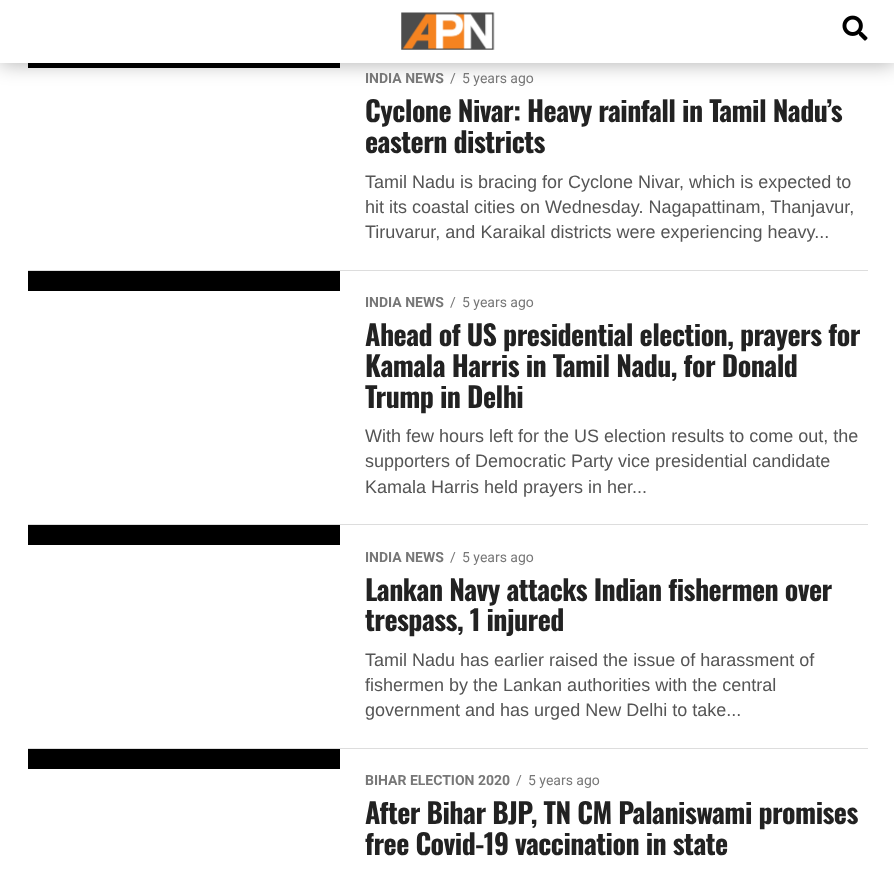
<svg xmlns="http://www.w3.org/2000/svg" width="894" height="871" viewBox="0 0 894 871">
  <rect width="100%" height="100%" fill="#fff"/>
  <path d="M28 63h312v5H28z" fill="#000"/>
  <path d="M0 1h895v63H0z" fill="#0000004d" filter="blur(10px)"/>
  <path d="M0 0h894v63H0z" fill="#fff"/>
  <image x="401" y="12" width="94" height="38" href="img/1.png"/>
  <image x="842" y="15" width="26" height="26" href="img/2.png"/>
  <path d="M28 270h840v1H28z" fill="#ddd"/>
  <path d="M28 271h312v20H28z" fill="#000"/>
  <path d="M28 524h840v1H28z" fill="#ddd"/>
  <path d="M28 525h312v20H28z" fill="#000"/>
  <path d="M28 748h840v1H28z" fill="#ddd"/>
  <path d="M28 749h312v20H28z" fill="#000"/>
  <text x="365" y="83" font-family="Roboto" font-size="14" font-weight="bold" fill="#777">INDIA NEWS</text>
  <g font-family="Roboto" font-size="14" fill="#777">
    <text x="450" y="83">/</text>
    <text x="462" y="83">5 years ago</text>
  </g>
  <g font-family="Oswald" font-size="28" font-weight="bold" letter-spacing="-0.55" fill="#222">
    <text x="365" y="122">Cyclone Nivar: Heavy rainfall in Tamil Nadu’s</text>
    <text x="365" y="153">eastern districts</text>
  </g>
  <g font-family="Liberation Sans" font-size="18" fill="#555">
    <text x="365" y="188">Tamil Nadu is bracing for Cyclone Nivar, which is expected to</text>
    <text x="365" y="213">hit its coastal cities on Wednesday. Nagapattinam, Thanjavur,</text>
    <text x="365" y="238">Tiruvarur, and Karaikal districts were experiencing heavy...</text>
  </g>
  <text x="365" y="307" font-family="Roboto" font-size="14" font-weight="bold" fill="#777">INDIA NEWS</text>
  <g font-family="Roboto" font-size="14" fill="#777">
    <text x="450" y="307">/</text>
    <text x="462" y="307">5 years ago</text>
  </g>
  <g font-family="Oswald" font-size="28" font-weight="bold" letter-spacing="-0.55" fill="#222">
    <text x="365" y="346">Ahead of US presidential election, prayers for</text>
    <text x="365" y="377">Kamala Harris in Tamil Nadu, for Donald</text>
    <text x="365" y="408">Trump in Delhi</text>
  </g>
  <g font-family="Liberation Sans" font-size="18" fill="#555">
    <text x="365" y="442">With few hours left for the US election results to come out, the</text>
    <text x="365" y="467">supporters of Democratic Party vice presidential candidate</text>
    <text x="365" y="493">Kamala Harris held prayers in her...</text>
  </g>
  <text x="365" y="562" font-family="Roboto" font-size="14" font-weight="bold" fill="#777">INDIA NEWS</text>
  <g font-family="Roboto" font-size="14" fill="#777">
    <text x="450" y="562">/</text>
    <text x="462" y="562">5 years ago</text>
  </g>
  <g font-family="Oswald" font-size="28" font-weight="bold" letter-spacing="-0.55" fill="#222">
    <text x="365" y="601">Lankan Navy attacks Indian fishermen over</text>
    <text x="365" y="631">trespass, 1 injured</text>
  </g>
  <g font-family="Liberation Sans" font-size="18" fill="#555">
    <text x="365" y="666">Tamil Nadu has earlier raised the issue of harassment of</text>
    <text x="365" y="691">fishermen by the Lankan authorities with the central</text>
    <text x="365" y="716">government and has urged New Delhi to take...</text>
  </g>
  <text x="365" y="785" font-family="Roboto" font-size="14" font-weight="bold" fill="#777">BIHAR ELECTION 2020</text>
  <g font-family="Roboto" font-size="14" fill="#777">
    <text x="516" y="785">/</text>
    <text x="528" y="785">5 years ago</text>
  </g>
  <g font-family="Oswald" font-size="28" font-weight="bold" letter-spacing="-0.55" fill="#222">
    <text x="365" y="824">After Bihar BJP, TN CM Palaniswami promises</text>
    <text x="365" y="855">free Covid-19 vaccination in state</text>
  </g>
</svg>
